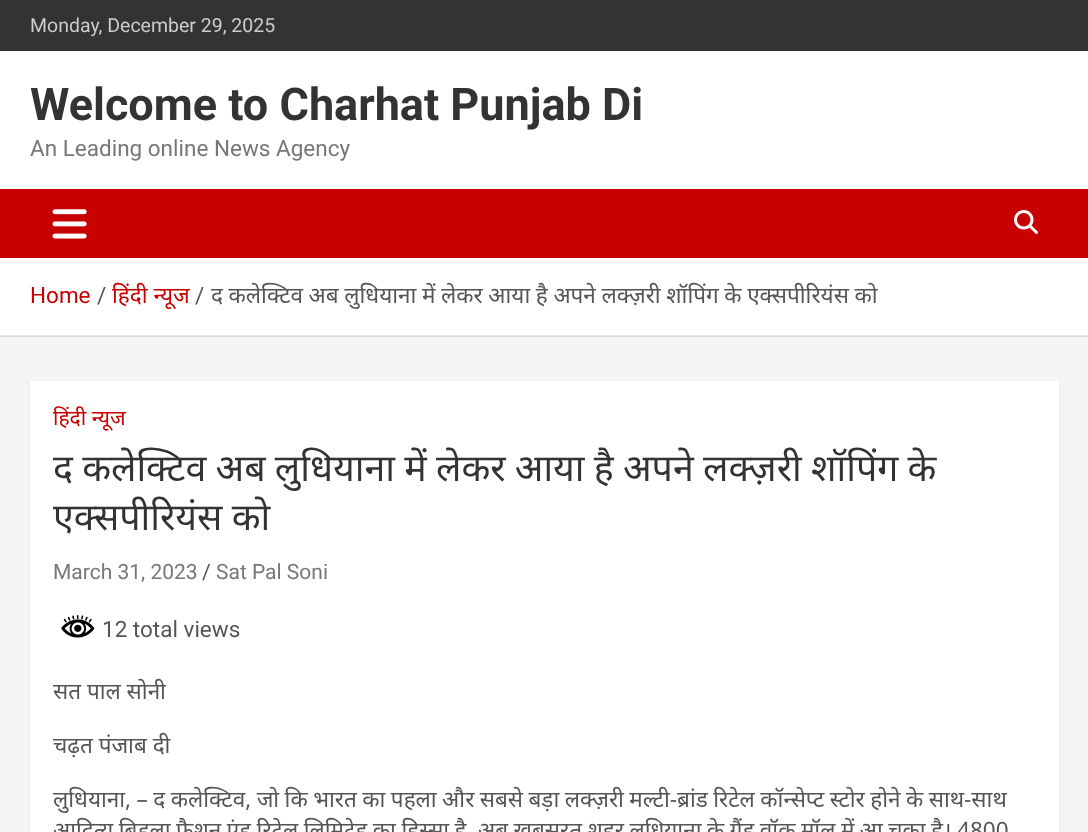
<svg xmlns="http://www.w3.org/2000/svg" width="1088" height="832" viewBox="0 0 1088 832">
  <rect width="100%" height="100%" fill="#f4f4f4"/>
  <path d="M0 336h1088v1H0z" fill="#dcdcdc"/>
  <path d="M0 0h1088v51H0z" fill="#333"/>
  <path d="M0 51h1088v138H0z" fill="#fff"/>
  <path d="M0 189h1088v69H0z" fill="#c80000"/>
  <image x="52" y="209" width="35" height="30" href="img/1.png"/>
  <image x="1014" y="210" width="24" height="24" href="img/2.png"/>
  <path d="M0 258h1088v77H0z" fill="#fff"/>
  <path d="M0 335h1088v1H0z" fill="#e6e6e6"/>
  <path d="M30 383h1029v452H30z" fill="#0000001a" filter="blur(1px)"/>
  <path d="M30 381h1029v451H30z" fill="#fff"/>
  <image x="61" y="615" width="34" height="23" href="img/3.png"/>
  <text x="30" y="32" font-family="Roboto" font-size="19.5" fill="#ccc">Monday, December 29, 2025</text>
  <text x="30" y="120" font-family="Roboto" font-size="45" font-weight="bold" fill="#333">Welcome to Charhat Punjab Di</text>
  <text x="30" y="156" font-family="Roboto" font-size="22.5" fill="#777">An Leading online News Agency</text>
  <text x="30" y="303" font-family="Roboto" font-size="22.5" fill="#c80000">Home</text>
  <text x="97" y="303" font-family="Roboto" font-size="22.5" fill="#555">/</text>
  <text x="112" y="303" font-family="Noto Sans" font-size="22.5" fill="#c80000">हिंदी न्यूज</text>
  <text x="195" y="303" font-family="Roboto" font-size="22.5" fill="#555">/</text>
  <text x="211" y="303" word-spacing="-0.25" font-family="Noto Sans" font-size="22.5" fill="#555">द कलेक्टिव अब लुधियाना में लेकर आया है अपने लक्ज़री शॉपिंग के एक्सपीरियंस को</text>
  <text x="53" y="425" font-family="Noto Sans" font-size="21" fill="#c80000">हिंदी न्यूज</text>
  <g font-family="Noto Sans" font-size="37.5" fill="#333">
    <text x="53" y="481" word-spacing="-0.5">द कलेक्टिव अब लुधियाना में लेकर आया है अपने लक्ज़री शॉपिंग के</text>
    <text x="53" y="530" word-spacing="-0.5">एक्सपीरियंस को</text>
  </g>
  <text x="53" y="579" font-family="Roboto" font-size="21" fill="#777">March 31, 2023</text>
  <text x="202" y="579" font-family="Roboto" font-size="21" fill="#555">/</text>
  <text x="216" y="579" font-family="Roboto" font-size="21" fill="#777">Sat Pal Soni</text>
  <text x="102" y="637" font-family="Roboto" font-size="22.5" fill="#555">12 total views</text>
  <g font-family="Noto Sans" font-size="22.5" fill="#555">
    <text x="53" y="699">सत पाल सोनी</text>
    <text x="53" y="753">चढ़त पंजाब दी</text>
    <text x="53" y="807" word-spacing="-0.4">लुधियाना, – द कलेक्टिव, जो कि भारत का पहला और सबसे बड़ा लक्ज़री मल्टी-ब्रांड रिटेल कॉन्सेप्ट स्टोर होने के साथ-साथ</text>
    <text x="53" y="838" word-spacing="-0.4">आदित्य बिड़ला फैशन एंड रिटेल लिमिटेड का हिस्सा है, अब खूबसूरत शहर लुधियाना के ग्रैंड वॉक मॉल में आ चुका है। 4800</text>
  </g>
</svg>
